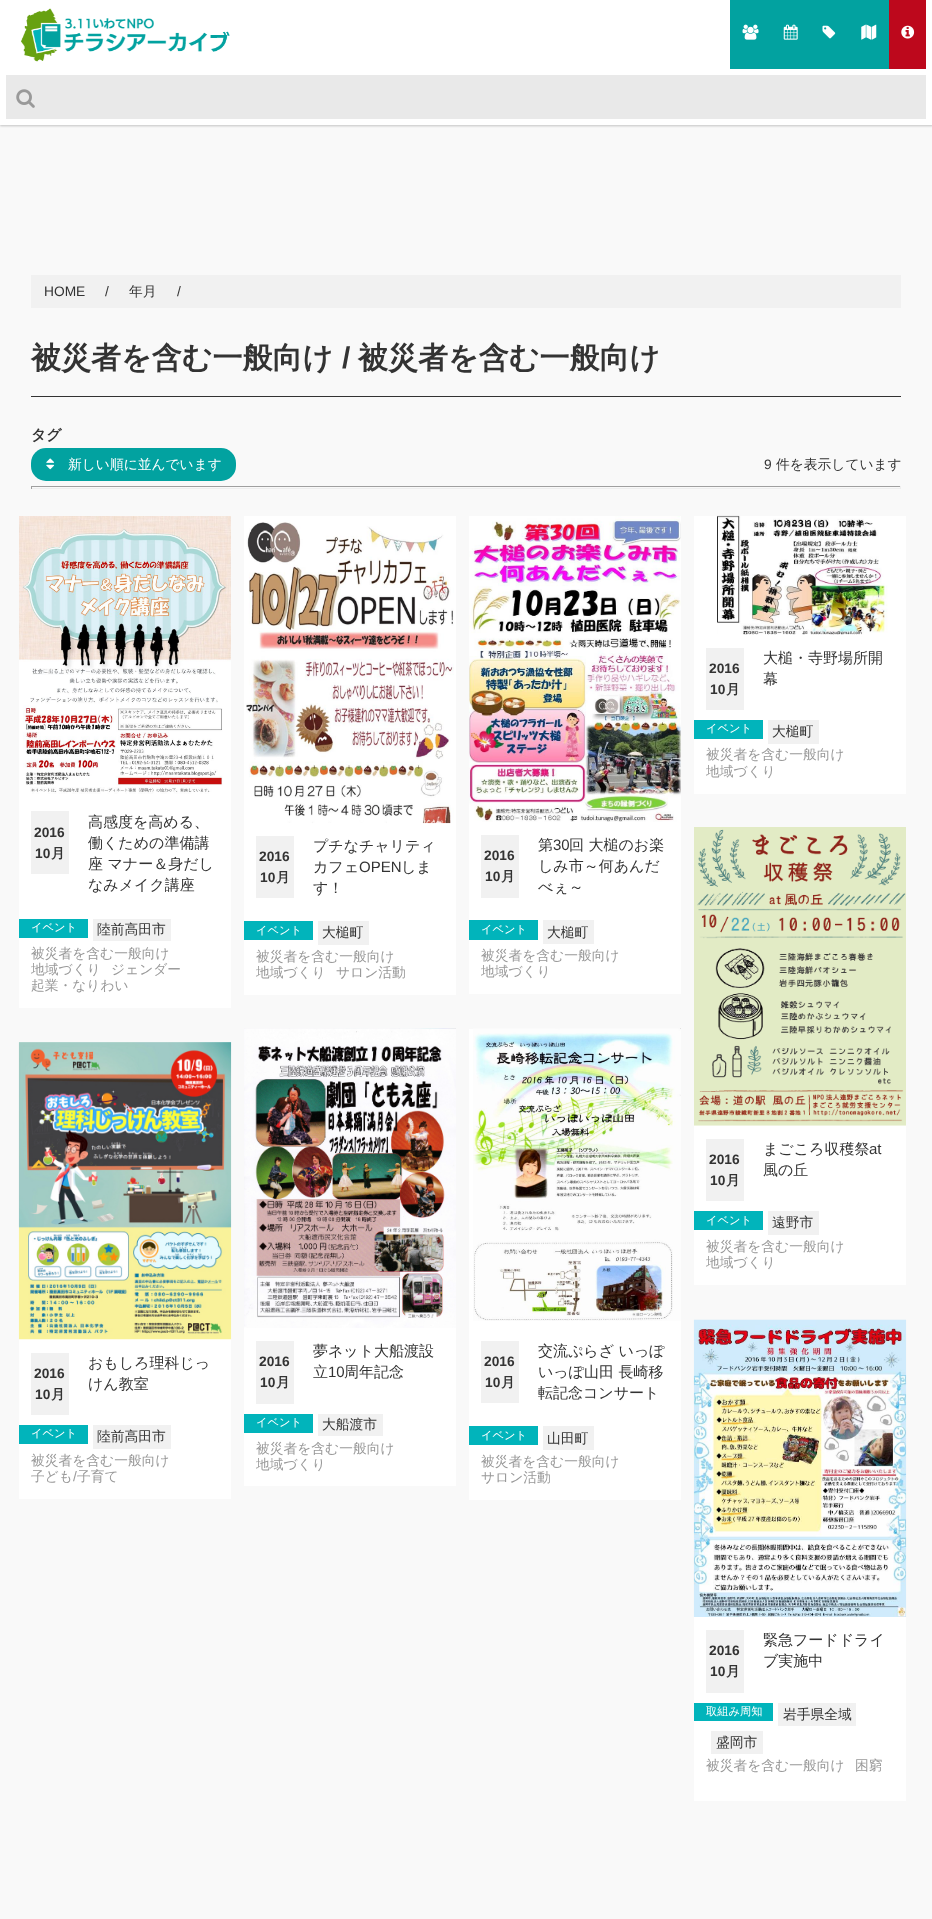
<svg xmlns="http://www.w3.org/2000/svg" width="932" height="1919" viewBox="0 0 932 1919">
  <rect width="100%" height="100%" fill="#f9f9f9"/>
  <path d="M0 1h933v125H0z" fill="#00000038" filter="blur(1px)"/>
  <path d="M0 0h932v125H0z" fill="#fff"/>
  <image x="21" y="8" width="209" height="54" href="img/1.png"/>
  <path d="M730 0h159v69H730z" fill="#02a2a0"/>
  <image x="742" y="24" width="17" height="16" href="img/2.png"/>
  <path d="M889 0h37v69H889z" fill="#bd081c"/>
  <image x="901" y="25" width="14" height="14" href="img/3.png"/>
  <image x="783" y="24" width="15" height="16" href="img/4.png"/>
  <image x="822" y="25" width="14" height="14" href="img/5.png"/>
  <image x="861" y="24" width="16" height="16" href="img/6.png"/>
  <path d="M6 75h920v44H6z" fill="#e9e9e9"/>
  <image x="16" y="89" width="19" height="19" href="img/7.png"/>
  <path d="M31 275h870v33H31z" fill="#f1f1f1"/>
  <path d="M31 396h870v1H31z" fill="#333"/>
  <rect x="31" y="448" width="205" height="33" rx="15" fill="#02a2a0"/>
  <image x="46" y="458" width="9" height="12" href="img/8.png"/>
  <path d="M31 486h870v1H31z" fill="#9f9f9f"/>
  <path d="M900 486h1v3H900z" fill="#eee"/>
  <path d="M31 488h870v1H31z" fill="#eee"/>
  <path d="M31 486h1v3H31z" fill="#9f9f9f"/>
  <path d="M694 516h212v278H694z" fill="#fff"/>
  <image x="717" y="515" width="171" height="120" href="img/9.png"/>
  <path d="M706 648h38v62H706z" fill="#f1f1f1"/>
  <path d="M694 720h69v19H694z" fill="#01b4bb"/>
  <path d="M768 720h51v24H768z" fill="#f1f1f1"/>
  <path d="M19 794h212v214H19z" fill="#fff"/>
  <image x="19" y="516" width="212" height="278" href="img/10.png"/>
  <path d="M31 811h38v63H31z" fill="#f1f1f1"/>
  <path d="M19 919h69v19H19z" fill="#01b4bb"/>
  <path d="M93 919h78v22H93z" fill="#f1f1f1"/>
  <path d="M244 516h212v479H244z" fill="#fff"/>
  <image x="246" y="522" width="208" height="302" href="img/11.png"/>
  <path d="M256 836h38v62H256z" fill="#f1f1f1"/>
  <path d="M244 921h69v19H244z" fill="#01b4bb"/>
  <path d="M318 921h51v24H318z" fill="#f1f1f1"/>
  <path d="M469 822h212v172H469z" fill="#fff"/>
  <image x="469" y="516" width="212" height="306" href="img/12.png"/>
  <path d="M481 835h38v63H481z" fill="#f1f1f1"/>
  <path d="M469 920h69v20H469z" fill="#01b4bb"/>
  <path d="M543 920h51v24H543z" fill="#f1f1f1"/>
  <path d="M694 1125h212v160H694z" fill="#fff"/>
  <image x="694" y="827" width="212" height="299" href="img/13.png"/>
  <path d="M706 1139h38v62H706z" fill="#f1f1f1"/>
  <path d="M694 1211h69v19H694z" fill="#01b4bb"/>
  <path d="M768 1211h51v24H768z" fill="#f1f1f1"/>
  <path d="M19 1339h212v160H19z" fill="#fff"/>
  <image x="18" y="1042" width="214" height="298" href="img/14.png"/>
  <path d="M31 1353h38v62H31z" fill="#f1f1f1"/>
  <path d="M19 1425h69v19H19z" fill="#01b4bb"/>
  <path d="M93 1425h78v24H93z" fill="#f1f1f1"/>
  <path d="M244 1328h212v158H244z" fill="#fff"/>
  <image x="244" y="1028" width="212" height="300" href="img/15.png"/>
  <path d="M256 1341h38v63H256z" fill="#f1f1f1"/>
  <path d="M244 1414h69v19H244z" fill="#01b4bb"/>
  <path d="M318 1414h65v22H318z" fill="#f1f1f1"/>
  <path d="M469 1029h212v471H469z" fill="#fff"/>
  <image x="473" y="1028" width="208" height="293" href="img/16.png"/>
  <path d="M481 1341h38v62H481z" fill="#f1f1f1"/>
  <path d="M469 1426h69v19H469z" fill="#01b4bb"/>
  <path d="M543 1426h51v24H543z" fill="#f1f1f1"/>
  <path d="M694 1617h212v184H694z" fill="#fff"/>
  <image x="693" y="1319" width="214" height="298" href="img/17.png"/>
  <path d="M706 1630h38v63H706z" fill="#f1f1f1"/>
  <path d="M694 1703h79v18H694z" fill="#01b4bb"/>
  <path d="M778 1703h78v23H778z" fill="#f1f1f1"/>
  <path d="M711 1731h52v23H711z" fill="#f1f1f1"/>
  <g font-family="Liberation Sans" font-size="13.75" fill="#333">
    <text x="44" y="296">HOME</text>
    <text x="105" y="296">/</text>
  </g>
  <text x="129" y="296" font-family="WenQuanYi Zen Hei" font-size="13.75" font-weight="500" fill="#333">年月</text>
  <text x="177" y="296" font-family="Liberation Sans" font-size="13.75" fill="#333">/</text>
  <text x="31" y="368" font-family="WenQuanYi Zen Hei" font-size="30" font-weight="bold" fill="#333">被災者を含む一般向け</text>
  <text x="342" y="368" font-family="Liberation Sans" font-size="30" font-weight="bold" fill="#333">/</text>
  <text x="358" y="368" font-family="WenQuanYi Zen Hei" font-size="30" font-weight="bold" fill="#333">被災者を含む一般向け</text>
  <text x="31" y="440" font-family="WenQuanYi Zen Hei" font-size="15" font-weight="bold" fill="#333">タグ</text>
  <text x="68" y="469" font-family="WenQuanYi Zen Hei" font-size="13.75" font-weight="500" fill="#fff">新しい順に並んでいます</text>
  <text x="764" y="469" font-family="Liberation Sans" font-size="13.75" fill="#333">9</text>
  <text x="776" y="469" font-family="WenQuanYi Zen Hei" font-size="13.75" font-weight="500" fill="#333">件を表示しています</text>
  <g font-family="Liberation Sans" font-size="13.75" font-weight="bold" fill="#333">
    <text x="709" y="673">2016</text>
    <text x="710" y="694">10</text>
  </g>
  <text x="726" y="694" font-family="WenQuanYi Zen Hei" font-size="13.75" font-weight="bold" fill="#333">月</text>
  <g font-family="WenQuanYi Zen Hei" font-size="15" font-weight="500" fill="#333">
    <text x="763" y="663">大槌・寺野場所開</text>
    <text x="763" y="684">幕</text>
  </g>
  <text x="706" y="732" font-family="WenQuanYi Zen Hei" font-size="11.25" font-weight="500" fill="#fff">イベント</text>
  <text x="772" y="736" font-family="WenQuanYi Zen Hei" font-size="13.75" font-weight="500" fill="#333">大槌町</text>
  <g font-family="WenQuanYi Zen Hei" font-size="13.75" font-weight="500" fill="#999">
    <text x="706" y="759">被災者を含む一般向け</text>
    <text x="706" y="776">地域づくり</text>
  </g>
  <g font-family="Liberation Sans" font-size="13.75" font-weight="bold" fill="#333">
    <text x="34" y="837">2016</text>
    <text x="35" y="858">10</text>
  </g>
  <text x="51" y="858" font-family="WenQuanYi Zen Hei" font-size="13.75" font-weight="bold" fill="#333">月</text>
  <g font-family="WenQuanYi Zen Hei" font-size="15" font-weight="500" fill="#333">
    <text x="88" y="827">高感度を高める、</text>
    <text x="88" y="848">働くための準備講</text>
    <text x="88" y="869">座 マナー＆身だし</text>
    <text x="88" y="890">なみメイク講座</text>
  </g>
  <text x="31" y="931" font-family="WenQuanYi Zen Hei" font-size="11.25" font-weight="500" fill="#fff">イベント</text>
  <text x="97" y="934" font-family="WenQuanYi Zen Hei" font-size="13.75" font-weight="500" fill="#333">陸前高田市</text>
  <g font-family="WenQuanYi Zen Hei" font-size="13.75" font-weight="500" fill="#999">
    <text x="31" y="958">被災者を含む一般向け</text>
    <text x="31" y="974">地域づくり</text>
    <text x="111" y="974">ジェンダー</text>
    <text x="31" y="990">起業・なりわい</text>
  </g>
  <g font-family="Liberation Sans" font-size="13.75" font-weight="bold" fill="#333">
    <text x="259" y="861">2016</text>
    <text x="260" y="882">10</text>
  </g>
  <text x="276" y="882" font-family="WenQuanYi Zen Hei" font-size="13.75" font-weight="bold" fill="#333">月</text>
  <g font-family="WenQuanYi Zen Hei" font-size="15" font-weight="500" fill="#333">
    <text x="313" y="851">プチなチャリティ</text>
    <text x="313" y="872">カフェ</text>
  </g>
  <text x="359" y="872" font-family="Liberation Sans" font-size="15" fill="#333">OPEN</text>
  <g font-family="WenQuanYi Zen Hei" font-size="15" font-weight="500" fill="#333">
    <text x="401" y="872">しま</text>
    <text x="313" y="893">す！</text>
  </g>
  <text x="256" y="934" font-family="WenQuanYi Zen Hei" font-size="11.25" font-weight="500" fill="#fff">イベント</text>
  <text x="322" y="937" font-family="WenQuanYi Zen Hei" font-size="13.75" font-weight="500" fill="#333">大槌町</text>
  <g font-family="WenQuanYi Zen Hei" font-size="13.75" font-weight="500" fill="#999">
    <text x="256" y="961">被災者を含む一般向け</text>
    <text x="256" y="977">地域づくり</text>
    <text x="336" y="977">サロン活動</text>
  </g>
  <g font-family="Liberation Sans" font-size="13.75" font-weight="bold" fill="#333">
    <text x="484" y="860">2016</text>
    <text x="485" y="881">10</text>
  </g>
  <text x="501" y="881" font-family="WenQuanYi Zen Hei" font-size="13.75" font-weight="bold" fill="#333">月</text>
  <text x="538" y="850" font-family="WenQuanYi Zen Hei" font-size="15" font-weight="500" fill="#333">第</text>
  <text x="553" y="850" font-family="Liberation Sans" font-size="15" fill="#333">30</text>
  <g font-family="WenQuanYi Zen Hei" font-size="15" font-weight="500" fill="#333">
    <text x="569" y="850">回 大槌のお楽</text>
    <text x="538" y="871">しみ市～何あんだ</text>
    <text x="538" y="892">べぇ～</text>
  </g>
  <text x="481" y="933" font-family="WenQuanYi Zen Hei" font-size="11.25" font-weight="500" fill="#fff">イベント</text>
  <text x="547" y="937" font-family="WenQuanYi Zen Hei" font-size="13.75" font-weight="500" fill="#333">大槌町</text>
  <g font-family="WenQuanYi Zen Hei" font-size="13.75" font-weight="500" fill="#999">
    <text x="481" y="960">被災者を含む一般向け</text>
    <text x="481" y="976">地域づくり</text>
  </g>
  <g font-family="Liberation Sans" font-size="13.75" font-weight="bold" fill="#333">
    <text x="709" y="1164">2016</text>
    <text x="710" y="1185">10</text>
  </g>
  <text x="726" y="1185" font-family="WenQuanYi Zen Hei" font-size="13.75" font-weight="bold" fill="#333">月</text>
  <text x="763" y="1154" font-family="WenQuanYi Zen Hei" font-size="15" font-weight="500" fill="#333">まごころ収穫祭</text>
  <text x="869" y="1154" font-family="Liberation Sans" font-size="15" fill="#333">at</text>
  <text x="763" y="1175" font-family="WenQuanYi Zen Hei" font-size="15" font-weight="500" fill="#333">風の丘</text>
  <text x="706" y="1224" font-family="WenQuanYi Zen Hei" font-size="11.25" font-weight="500" fill="#fff">イベント</text>
  <text x="772" y="1227" font-family="WenQuanYi Zen Hei" font-size="13.75" font-weight="500" fill="#333">遠野市</text>
  <g font-family="WenQuanYi Zen Hei" font-size="13.75" font-weight="500" fill="#999">
    <text x="706" y="1251">被災者を含む一般向け</text>
    <text x="706" y="1267">地域づくり</text>
  </g>
  <g font-family="Liberation Sans" font-size="13.75" font-weight="bold" fill="#333">
    <text x="34" y="1378">2016</text>
    <text x="35" y="1399">10</text>
  </g>
  <text x="51" y="1399" font-family="WenQuanYi Zen Hei" font-size="13.75" font-weight="bold" fill="#333">月</text>
  <g font-family="WenQuanYi Zen Hei" font-size="15" font-weight="500" fill="#333">
    <text x="88" y="1368">おもしろ理科じっ</text>
    <text x="88" y="1389">けん教室</text>
  </g>
  <text x="31" y="1437" font-family="WenQuanYi Zen Hei" font-size="11.25" font-weight="500" fill="#fff">イベント</text>
  <text x="97" y="1441" font-family="WenQuanYi Zen Hei" font-size="13.75" font-weight="500" fill="#333">陸前高田市</text>
  <g font-family="WenQuanYi Zen Hei" font-size="13.75" font-weight="500" fill="#999">
    <text x="31" y="1465">被災者を含む一般向け</text>
    <text x="31" y="1481">子ども</text>
  </g>
  <text x="73" y="1481" font-family="Liberation Sans" font-size="13.75" fill="#999">/</text>
  <text x="77" y="1481" font-family="WenQuanYi Zen Hei" font-size="13.75" font-weight="500" fill="#999">子育て</text>
  <g font-family="Liberation Sans" font-size="13.75" font-weight="bold" fill="#333">
    <text x="259" y="1366">2016</text>
    <text x="260" y="1387">10</text>
  </g>
  <text x="276" y="1387" font-family="WenQuanYi Zen Hei" font-size="13.75" font-weight="bold" fill="#333">月</text>
  <g font-family="WenQuanYi Zen Hei" font-size="15" font-weight="500" fill="#333">
    <text x="313" y="1356">夢ネット大船渡設</text>
    <text x="313" y="1377">立</text>
  </g>
  <text x="328" y="1377" font-family="Liberation Sans" font-size="15" fill="#333">10</text>
  <text x="344" y="1377" font-family="WenQuanYi Zen Hei" font-size="15" font-weight="500" fill="#333">周年記念</text>
  <text x="256" y="1426" font-family="WenQuanYi Zen Hei" font-size="11.25" font-weight="500" fill="#fff">イベント</text>
  <text x="322" y="1429" font-family="WenQuanYi Zen Hei" font-size="13.75" font-weight="500" fill="#333">大船渡市</text>
  <g font-family="WenQuanYi Zen Hei" font-size="13.75" font-weight="500" fill="#999">
    <text x="256" y="1453">被災者を含む一般向け</text>
    <text x="256" y="1469">地域づくり</text>
  </g>
  <g font-family="Liberation Sans" font-size="13.75" font-weight="bold" fill="#333">
    <text x="484" y="1366">2016</text>
    <text x="485" y="1387">10</text>
  </g>
  <text x="501" y="1387" font-family="WenQuanYi Zen Hei" font-size="13.75" font-weight="bold" fill="#333">月</text>
  <g font-family="WenQuanYi Zen Hei" font-size="15" font-weight="500" fill="#333">
    <text x="538" y="1356">交流ぷらざ いっぽ</text>
    <text x="538" y="1377">いっぽ山田 長崎移</text>
    <text x="538" y="1398">転記念コンサート</text>
  </g>
  <text x="481" y="1439" font-family="WenQuanYi Zen Hei" font-size="11.25" font-weight="500" fill="#fff">イベント</text>
  <text x="547" y="1443" font-family="WenQuanYi Zen Hei" font-size="13.75" font-weight="500" fill="#333">山田町</text>
  <g font-family="WenQuanYi Zen Hei" font-size="13.75" font-weight="500" fill="#999">
    <text x="481" y="1466">被災者を含む一般向け</text>
    <text x="481" y="1482">サロン活動</text>
  </g>
  <g font-family="Liberation Sans" font-size="13.75" font-weight="bold" fill="#333">
    <text x="709" y="1655">2016</text>
    <text x="710" y="1676">10</text>
  </g>
  <text x="726" y="1676" font-family="WenQuanYi Zen Hei" font-size="13.75" font-weight="bold" fill="#333">月</text>
  <g font-family="WenQuanYi Zen Hei" font-size="15" font-weight="500" fill="#333">
    <text x="763" y="1645">緊急フードドライ</text>
    <text x="763" y="1666">ブ実施中</text>
  </g>
  <text x="706" y="1715" font-family="WenQuanYi Zen Hei" font-size="11.25" font-weight="500" fill="#fff">取組み周知</text>
  <g font-family="WenQuanYi Zen Hei" font-size="13.75" font-weight="500" fill="#333">
    <text x="783" y="1719">岩手県全域</text>
    <text x="716" y="1747">盛岡市</text>
  </g>
  <g font-family="WenQuanYi Zen Hei" font-size="13.75" font-weight="500" fill="#999">
    <text x="706" y="1770">被災者を含む一般向け</text>
    <text x="855" y="1770">困窮</text>
  </g>
</svg>
